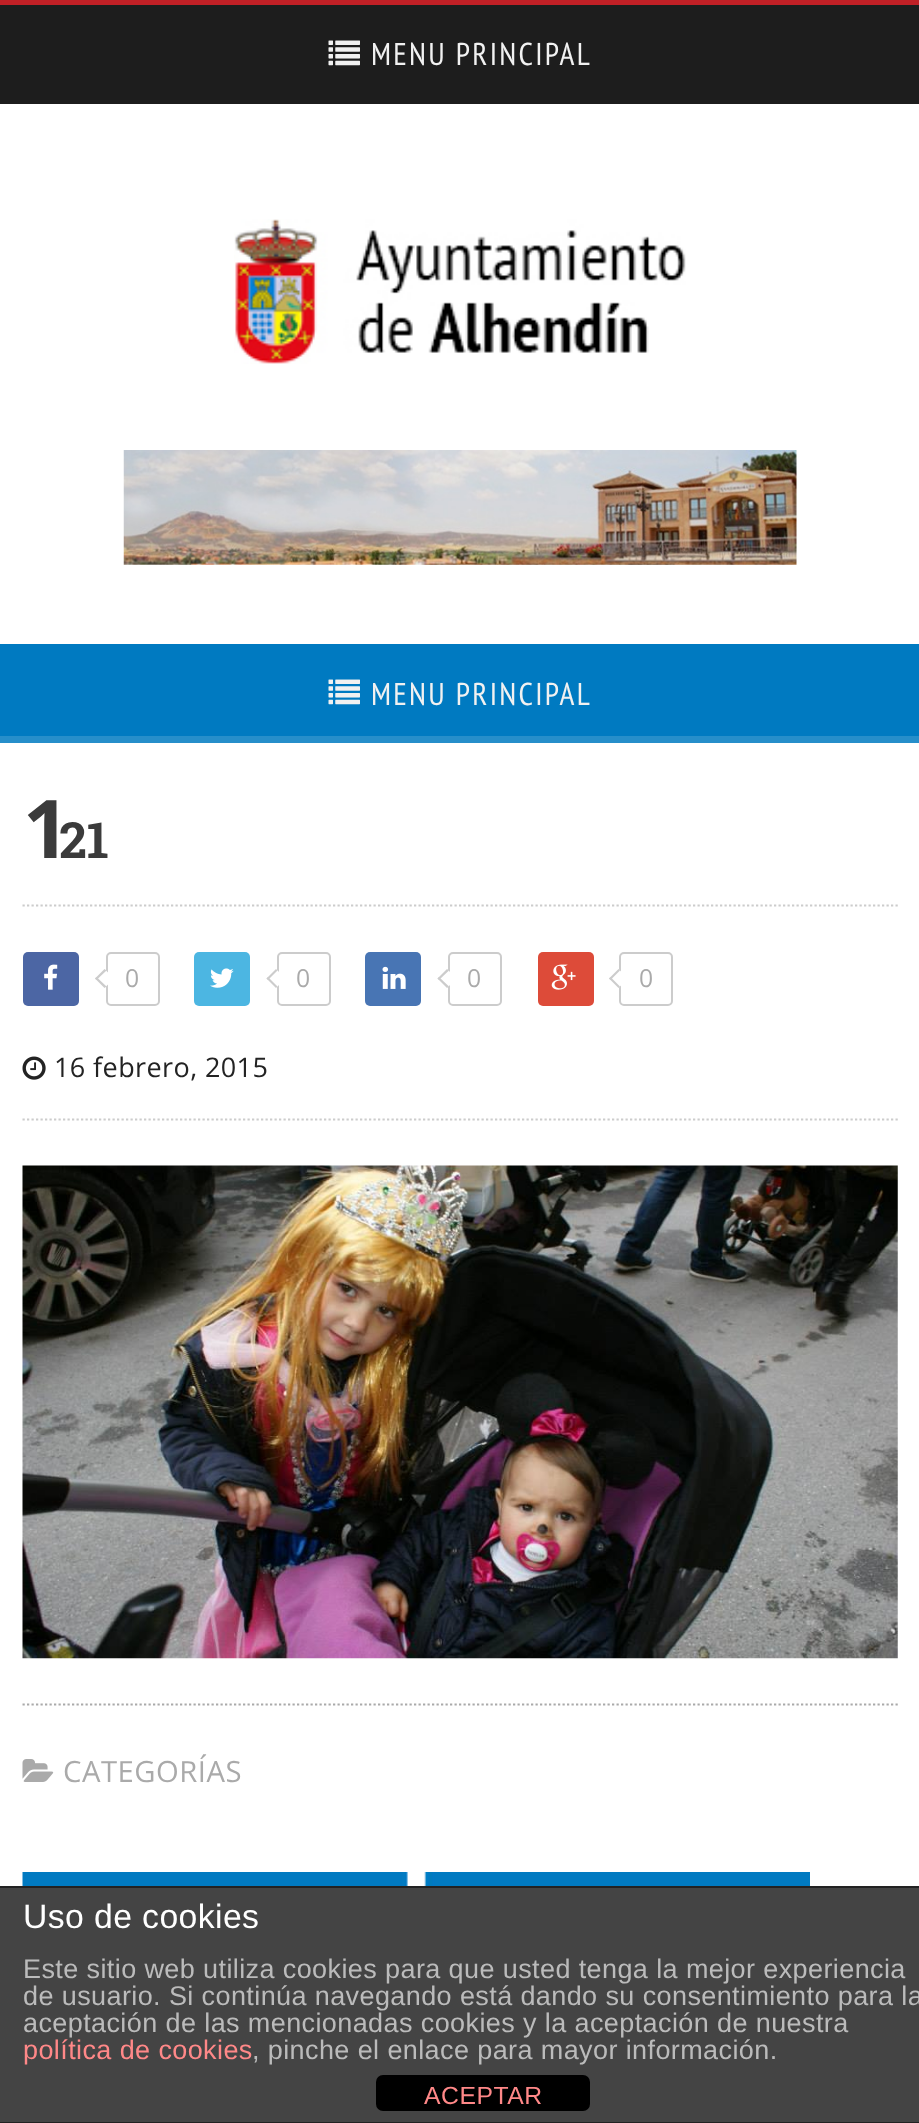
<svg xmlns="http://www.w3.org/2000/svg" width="919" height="2123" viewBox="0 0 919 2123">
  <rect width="100%" height="100%" fill="#fff"/>
  <path d="M0 5h919v99H0z" fill="#1d1d1d"/>
  <path d="M0 0h919v5H0z" fill="#c12026"/>
  <image x="328" y="40" width="32" height="26" href="img/1.png"/>
  <image x="234" y="219" width="452" height="145" href="img/2.png"/>
  <image x="123" y="450" width="674" height="115" href="img/3.png"/>
  <path d="M0 644h919v92H0z" fill="#007ac1"/>
  <path d="M0 736h919v7H0z" fill="#268eca"/>
  <image x="328" y="679" width="32" height="26" href="img/4.png"/>
  <path d="M22.5 905.5H898" fill="none" stroke="#ccc" stroke-width="2.2" stroke-dasharray="2.25 2.25"/>
  <path d="M22.5 1119.5H898" fill="none" stroke="#ccc" stroke-width="2.2" stroke-dasharray="2.25 2.25"/>
  <rect x="23" y="952" width="56" height="54" rx="5" fill="#4c66a4"/>
  <image x="44" y="964" width="14" height="26" href="img/5.png"/>
  <rect x="107" y="953" width="52" height="52" rx="4" fill="none" stroke="#ccc" stroke-width="2"/>
  <path d="M104.5 969L114 978.5L104.5 988L95 978.5Z" fill="#fff"/>
  <path d="M96.5 977L106.5 986.5L104.5 988L95 978.5Z" fill="#ccc"/>
  <path d="M104.5 969L106.5 970.5L96.5 980L95 978.5Z" fill="#ccc"/>
  <rect x="194" y="952" width="56" height="54" rx="5" fill="#4cb6e2"/>
  <image x="210" y="968" width="24" height="20" href="img/6.png"/>
  <rect x="278" y="953" width="52" height="52" rx="4" fill="none" stroke="#ccc" stroke-width="2"/>
  <path d="M276 969L285.5 978.5L276 988L266.5 978.5Z" fill="#fff"/>
  <path d="M268 977L277.5 986.5L276 988L266.5 978.5Z" fill="#ccc"/>
  <path d="M276 969L277.5 970.5L268 980L266.5 978.5Z" fill="#ccc"/>
  <rect x="365" y="952" width="56" height="54" rx="5" fill="#4875b4"/>
  <image x="382" y="966" width="24" height="23" href="img/7.png"/>
  <rect x="449" y="953" width="52" height="52" rx="4" fill="none" stroke="#ccc" stroke-width="2"/>
  <path d="M447 969L456.5 978.5L447 988L437.5 978.5Z" fill="#fff"/>
  <path d="M439 977L449 986.5L447 988L437.5 978.5Z" fill="#ccc"/>
  <path d="M447 969L449 970.5L439 980L437.5 978.5Z" fill="#ccc"/>
  <rect x="538" y="952" width="56" height="54" rx="5" fill="#dd4b39"/>
  <image x="551" y="964" width="25" height="26" href="img/8.png"/>
  <rect x="620" y="953" width="52" height="52" rx="4" fill="none" stroke="#ccc" stroke-width="2"/>
  <path d="M618.5 969L628 978.5L618.5 988L609 978.5Z" fill="#fff"/>
  <path d="M610.5 977L620 986.5L618.5 988L609 978.5Z" fill="#ccc"/>
  <path d="M618.5 969L620 970.5L610.5 980L609 978.5Z" fill="#ccc"/>
  <image x="22" y="1056" width="24" height="24" href="img/9.png"/>
  <image x="22" y="1165" width="876" height="494" href="img/10.png"/>
  <path d="M22.5 1704.5H898" fill="none" stroke="#aaa" stroke-width="2.2" stroke-dasharray="2.25 2.25"/>
  <image x="22" y="1759" width="32" height="23" href="img/11.png"/>
  <image x="22" y="1872" width="386" height="14" href="img/12.png"/>
  <image x="424" y="1872" width="386" height="14" href="img/13.png"/>
  <path d="M0 1888h919v234H0z" fill="#444"/>
  <path d="M0 1886h919v2H0z" fill="#222"/>
  <path d="M0 2122h919v1H0z" fill="#222"/>
  <rect x="376" y="2075" width="214" height="36" rx="7" fill="#000"/>
  <g font-family="PT Sans Narrow" font-size="31.5" letter-spacing="2.25" fill="#f1f1f1">
    <text x="371" y="65">MENU PRINCIPAL</text>
    <text x="371" y="705">MENU PRINCIPAL</text>
  </g>
  <text x="23" y="858" font-family="Noto Sans" font-size="81" font-weight="bold" fill="#3b3b3b">1</text>
  <text x="59" y="858" font-family="Roboto Slab" font-size="50" font-weight="bold" fill="#3b3b3b">21</text>
  <g font-family="Open Sans" font-size="24.75" letter-spacing="0.4" fill="#aaa">
    <text x="125" y="987">0</text>
    <text x="296" y="987">0</text>
    <text x="467" y="987">0</text>
    <text x="639" y="987">0</text>
  </g>
  <text x="54" y="1077" font-family="Open Sans" font-size="27" letter-spacing="0.4" fill="#232323">16 febrero, 2015</text>
  <text x="63" y="1782" font-family="Open Sans" font-size="29.25" letter-spacing="0.5" fill="#aaa">CATEGORÍAS</text>
  <text x="23" y="1928" font-family="Liberation Sans" font-size="33.75" letter-spacing="0.4" fill="#fff">Uso de cookies</text>
  <g font-family="Liberation Sans" font-size="27" letter-spacing="0.4" fill="#bbb">
    <text x="23" y="1978">Este sitio web utiliza cookies para que usted tenga la mejor experiencia</text>
    <text x="23" y="2005">de usuario. Si continúa navegando está dando su consentimiento para la</text>
    <text x="23" y="2032">aceptación de las mencionadas cookies y la aceptación de nuestra</text>
  </g>
  <text x="23" y="2059" font-family="Liberation Sans" font-size="27" letter-spacing="0.4" fill="#f88">política de cookies</text>
  <text x="252" y="2059" font-family="Liberation Sans" font-size="27" letter-spacing="0.4" fill="#bbb">, pinche el enlace para mayor información.</text>
  <text x="424" y="2104" font-family="Liberation Sans" font-size="24.75" letter-spacing="0.5" fill="#f88">ACEPTAR</text>
</svg>
